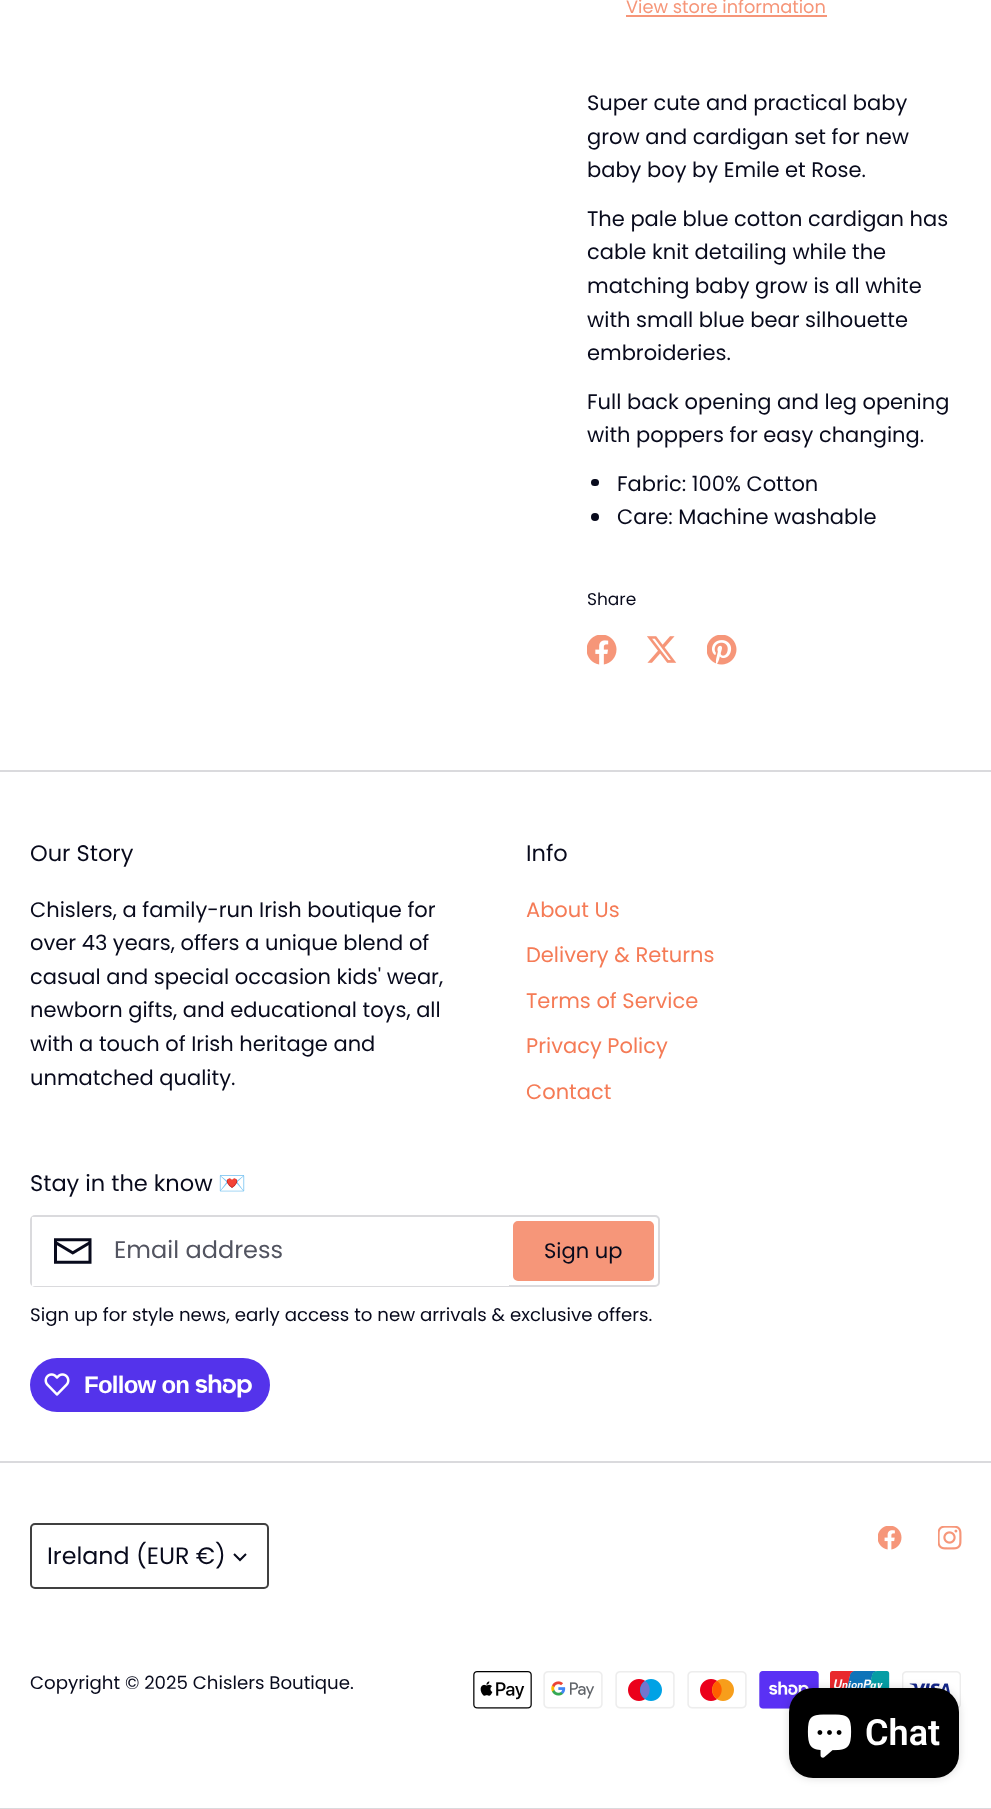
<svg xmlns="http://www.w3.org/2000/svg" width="991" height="1809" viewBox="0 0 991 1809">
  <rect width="100%" height="100%" fill="#fff"/>
  <path d="M626 15h201v2H626z" fill="#f69679"/>
  <rect x="591" y="479" width="8" height="7" rx="3.5" fill="#080a1c"/>
  <circle cx="595" cy="517" r="4" fill="#080a1c"/>
  <image x="587" y="635" width="30" height="30" href="img/1.png"/>
  <image x="647" y="636" width="30" height="27" href="img/2.png"/>
  <image x="707" y="635" width="30" height="30" href="img/3.png"/>
  <path d="M0 770h991v2H0z" fill="#dadadd"/>
  <path d="M0 1461h991v2H0z" fill="#dadadd"/>
  <rect x="31" y="1216" width="628" height="70" rx="4" fill="none" stroke="#dadadd" stroke-width="2"/>
  <path d="M32 1217h477v69H32z" fill="#fff"/>
  <image x="54" y="1238" width="38" height="26" href="img/4.png"/>
  <rect x="514" y="1222" width="139" height="58" rx="4" fill="#f69679" stroke="#f69679" stroke-width="2"/>
  <rect x="30" y="1358" width="240" height="54" rx="27" fill="#5433eb"/>
  <image x="44" y="1373" width="26" height="23" href="img/5.png"/>
  <image x="195" y="1374" width="57" height="24" href="img/6.png"/>
  <image x="878" y="1526" width="24" height="24" href="img/7.png"/>
  <image x="938" y="1526" width="24" height="24" href="img/8.png"/>
  <rect x="31" y="1524" width="237" height="64" rx="4" fill="none" stroke="#404040" stroke-width="2"/>
  <path d="M234 1554L240 1560L246 1554" fill="none" stroke="#080a1c" stroke-width="2"/>
  <image x="473" y="1671" width="59" height="38" href="img/9.png"/>
  <image x="543" y="1671" width="60" height="38" href="img/10.png"/>
  <image x="615" y="1671" width="60" height="38" href="img/11.png"/>
  <image x="687" y="1671" width="60" height="38" href="img/12.png"/>
  <image x="759" y="1671" width="60" height="38" href="img/13.png"/>
  <image x="830" y="1671" width="60" height="17" href="img/14.png"/>
  <image x="902" y="1671" width="59" height="37" href="img/15.png"/>
  <rect x="789" y="1688" width="170" height="90" rx="24" fill="#00000026" filter="blur(4px)"/>
  <rect x="789" y="1688" width="170" height="90" rx="24" fill="#000"/>
  <image x="807" y="1714" width="45" height="44" href="img/16.png"/>
  <path d="M0 1808h991v1H0z" fill="#dadadd"/>
  <text x="626" y="13" font-family="Poppins" font-size="17.8" fill="#f69679">View store information</text>
  <g font-family="Poppins" font-size="21" fill="#080a1c">
    <text x="587" y="110">Super cute and practical baby</text>
    <text x="587" y="144">grow and cardigan set for new</text>
    <text x="587" y="177">baby boy by Emile et Rose.</text>
    <text x="587" y="226">The pale blue cotton cardigan has</text>
    <text x="587" y="259">cable knit detailing while the</text>
    <text x="587" y="293">matching baby grow is all white</text>
    <text x="587" y="327">with small blue bear silhouette</text>
    <text x="587" y="360">embroideries.</text>
    <text x="587" y="409">Full back opening and leg opening</text>
    <text x="587" y="442">with poppers for easy changing.</text>
    <text x="617" y="491">Fabric: 100% Cotton</text>
    <text x="617" y="524">Care: Machine washable</text>
  </g>
  <text x="587" y="605" font-family="Poppins" font-size="17" fill="#080a1c">Share</text>
  <text x="30" y="861" font-family="Poppins" font-size="22.5" fill="#080a1c">Our Story</text>
  <g font-family="Poppins" font-size="21" fill="#080a1c">
    <text x="30" y="917">Chislers, a family-run Irish boutique for</text>
    <text x="30" y="950">over 43 years, offers a unique blend of</text>
    <text x="30" y="984">casual and special occasion kids' wear,</text>
    <text x="30" y="1017">newborn gifts, and educational toys, all</text>
    <text x="30" y="1051">with a touch of Irish heritage and</text>
    <text x="30" y="1085">unmatched quality.</text>
  </g>
  <text x="526" y="861" font-family="Poppins" font-size="22.5" fill="#080a1c">Info</text>
  <g font-family="Poppins" font-size="21" fill="#f57b56">
    <text x="526" y="917">About Us</text>
    <text x="526" y="962">Delivery &amp; Returns</text>
    <text x="526" y="1008">Terms of Service</text>
    <text x="526" y="1053">Privacy Policy</text>
    <text x="526" y="1099">Contact</text>
  </g>
  <text x="30" y="1191" font-family="Poppins" font-size="22.5" fill="#080a1c">Stay in the know</text>
  <text x="218" y="1191" font-family="Noto Color Emoji" font-size="22.5" fill="#080a1c">💌</text>
  <text x="114" y="1258" font-family="Poppins" font-size="24" fill="#525460">Email address</text>
  <text x="544" y="1258" font-family="Poppins" font-size="21" fill="#080a1c">Sign up</text>
  <text x="30" y="1321" font-family="Poppins" font-size="18.2" fill="#080a1c">Sign up for style news, early access to new arrivals &amp; exclusive offers.</text>
  <text x="84" y="1393" font-family="Liberation Sans" font-size="24" font-weight="bold" letter-spacing="-0.75" fill="#fff">Follow on</text>
  <text x="47" y="1564" font-family="Poppins" font-size="23.75" fill="#080a1c">Ireland (EUR €)</text>
  <text x="30" y="1689" font-family="Poppins" font-size="18.2" fill="#080a1c">Copyright © 2025 Chislers Boutique.</text>
  <text x="865" y="1745" font-family="Roboto" font-size="36" font-weight="600" fill="#fff">Chat</text>
</svg>
